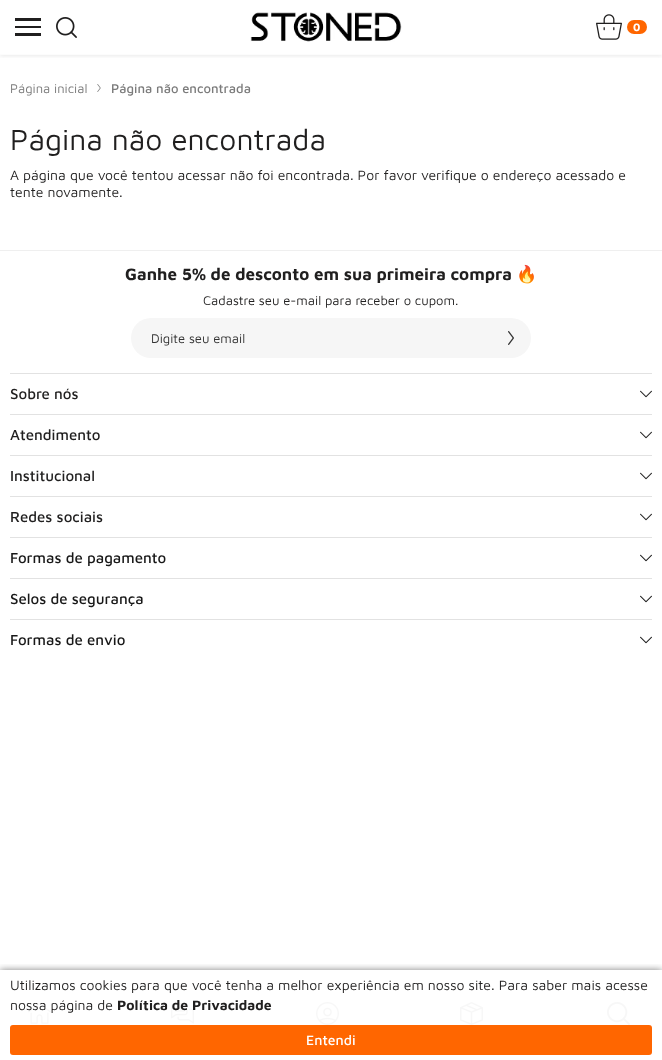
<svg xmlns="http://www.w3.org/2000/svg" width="662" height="1060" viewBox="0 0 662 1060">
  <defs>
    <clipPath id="clip1"><path d="M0 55h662v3H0z"/></clipPath>
    <clipPath id="clip2"><path d="M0 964h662v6H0z"/></clipPath>
  </defs>
  <rect width="100%" height="100%" fill="#fff"/>
  <g clip-path="url(#clip1)">
    <path d="M0 1h662v55H0z" fill="#52525221" filter="blur(2px)"/>
  </g>
  <path d="M0 54h662v1H0z" fill="#fcfcfc"/>
  <path d="M15 33h26v3H15z" fill="#201f1f"/>
  <path d="M15 26h26v2H15z" fill="#201f1f"/>
  <path d="M15 18h26v3H15z" fill="#201f1f"/>
  <image x="56" y="17" width="21" height="21" href="img/1.png"/>
  <image x="250" y="12" width="152" height="30" href="img/2.png"/>
  <image x="596" y="14" width="26" height="26" href="img/3.png"/>
  <rect x="627" y="20" width="20" height="14" rx="7" fill="#f60"/>
  <image x="97" y="84" width="4" height="8" href="img/4.png"/>
  <path d="M0 250h662v1H0z" fill="#efefef"/>
  <rect x="131" y="318" width="400" height="40" rx="20" fill="#f6f6f6"/>
  <image x="508" y="331" width="6" height="14" href="img/5.png"/>
  <path d="M10 373h642v1H10z" fill="#e2e2e2"/>
  <image x="640" y="390" width="12" height="8" href="img/6.png"/>
  <path d="M10 414h642v1H10z" fill="#e2e2e2"/>
  <image x="640" y="431" width="12" height="8" href="img/6.png"/>
  <path d="M10 455h642v1H10z" fill="#e2e2e2"/>
  <image x="640" y="472" width="12" height="8" href="img/6.png"/>
  <path d="M10 496h642v1H10z" fill="#e2e2e2"/>
  <image x="640" y="513" width="12" height="8" href="img/6.png"/>
  <path d="M10 537h642v1H10z" fill="#e2e2e2"/>
  <image x="640" y="554" width="12" height="8" href="img/7.png"/>
  <path d="M10 578h642v1H10z" fill="#e2e2e2"/>
  <image x="640" y="595" width="12" height="8" href="img/7.png"/>
  <path d="M10 619h642v1H10z" fill="#e2e2e2"/>
  <image x="640" y="636" width="12" height="8" href="img/7.png"/>
  <image x="28" y="1003" width="23" height="21" href="img/8.png"/>
  <image x="171" y="1003" width="23" height="21" href="img/9.png"/>
  <image x="316" y="1002" width="23" height="23" href="img/10.png"/>
  <image x="460" y="1002" width="23" height="23" href="img/11.png"/>
  <image x="607" y="1002" width="23" height="23" href="img/12.png"/>
  <g clip-path="url(#clip2)">
    <path d="M0 970h662v90H0z" fill="#00000080" filter="blur(3.5px)"/>
  </g>
  <rect x="10" y="1025" width="642" height="30" rx="3" fill="#f60"/>
  <text x="633" y="31" font-family="Maven Pro" font-size="11" font-weight="bold" fill="#fff">0</text>
  <text x="10" y="93" font-family="Maven Pro" font-size="13" fill="#7b7b7b">Página inicial</text>
  <text x="111" y="93" font-family="Maven Pro" font-size="13" font-weight="500" fill="#7b7b7b">Página não encontrada</text>
  <text x="10" y="150" font-family="Maven Pro" font-size="30" fill="#201f1f">Página não encontrada</text>
  <g font-family="Maven Pro" font-size="14" fill="#201f1f">
    <text x="10" y="180">A página que você tentou acessar não foi encontrada. Por favor verifique o endereço acessado e</text>
    <text x="10" y="197">tente novamente.</text>
  </g>
  <text x="125" y="280" font-family="Maven Pro" font-size="17" font-weight="bold" fill="#201f1f">Ganhe 5% de desconto em sua primeira compra</text>
  <text x="516" y="280" font-family="Noto Color Emoji" font-size="17" font-weight="bold" fill="#201f1f">🔥</text>
  <text x="203" y="305" font-family="Maven Pro" font-size="13" fill="#201f1f">Cadastre seu e-mail para receber o cupom.</text>
  <text x="151" y="343" font-family="Maven Pro" font-size="13" fill="#323232">Digite seu email</text>
  <g font-family="Maven Pro" font-size="15" font-weight="500" fill="#201f1f">
    <text x="10" y="399">Sobre nós</text>
    <text x="10" y="440">Atendimento</text>
    <text x="10" y="481">Institucional</text>
    <text x="10" y="522">Redes sociais</text>
  </g>
  <g font-family="Maven Pro" font-size="15" font-weight="500" fill="#181818">
    <text x="10" y="563">Formas de pagamento</text>
    <text x="10" y="604">Selos de segurança</text>
    <text x="10" y="645">Formas de envio</text>
  </g>
  <g font-family="Maven Pro" font-size="14" fill="#201f1f">
    <text x="10" y="990">Utilizamos cookies para que você tenha a melhor experiência em nosso site. Para saber mais acesse</text>
    <text x="10" y="1010">nossa página de</text>
  </g>
  <text x="117" y="1010" font-family="Maven Pro" font-size="14" font-weight="bold" fill="#201f1f">Política de Privacidade</text>
  <text x="306" y="1045" font-family="Maven Pro" font-size="14" font-weight="500" fill="#fff">Entendi</text>
</svg>
